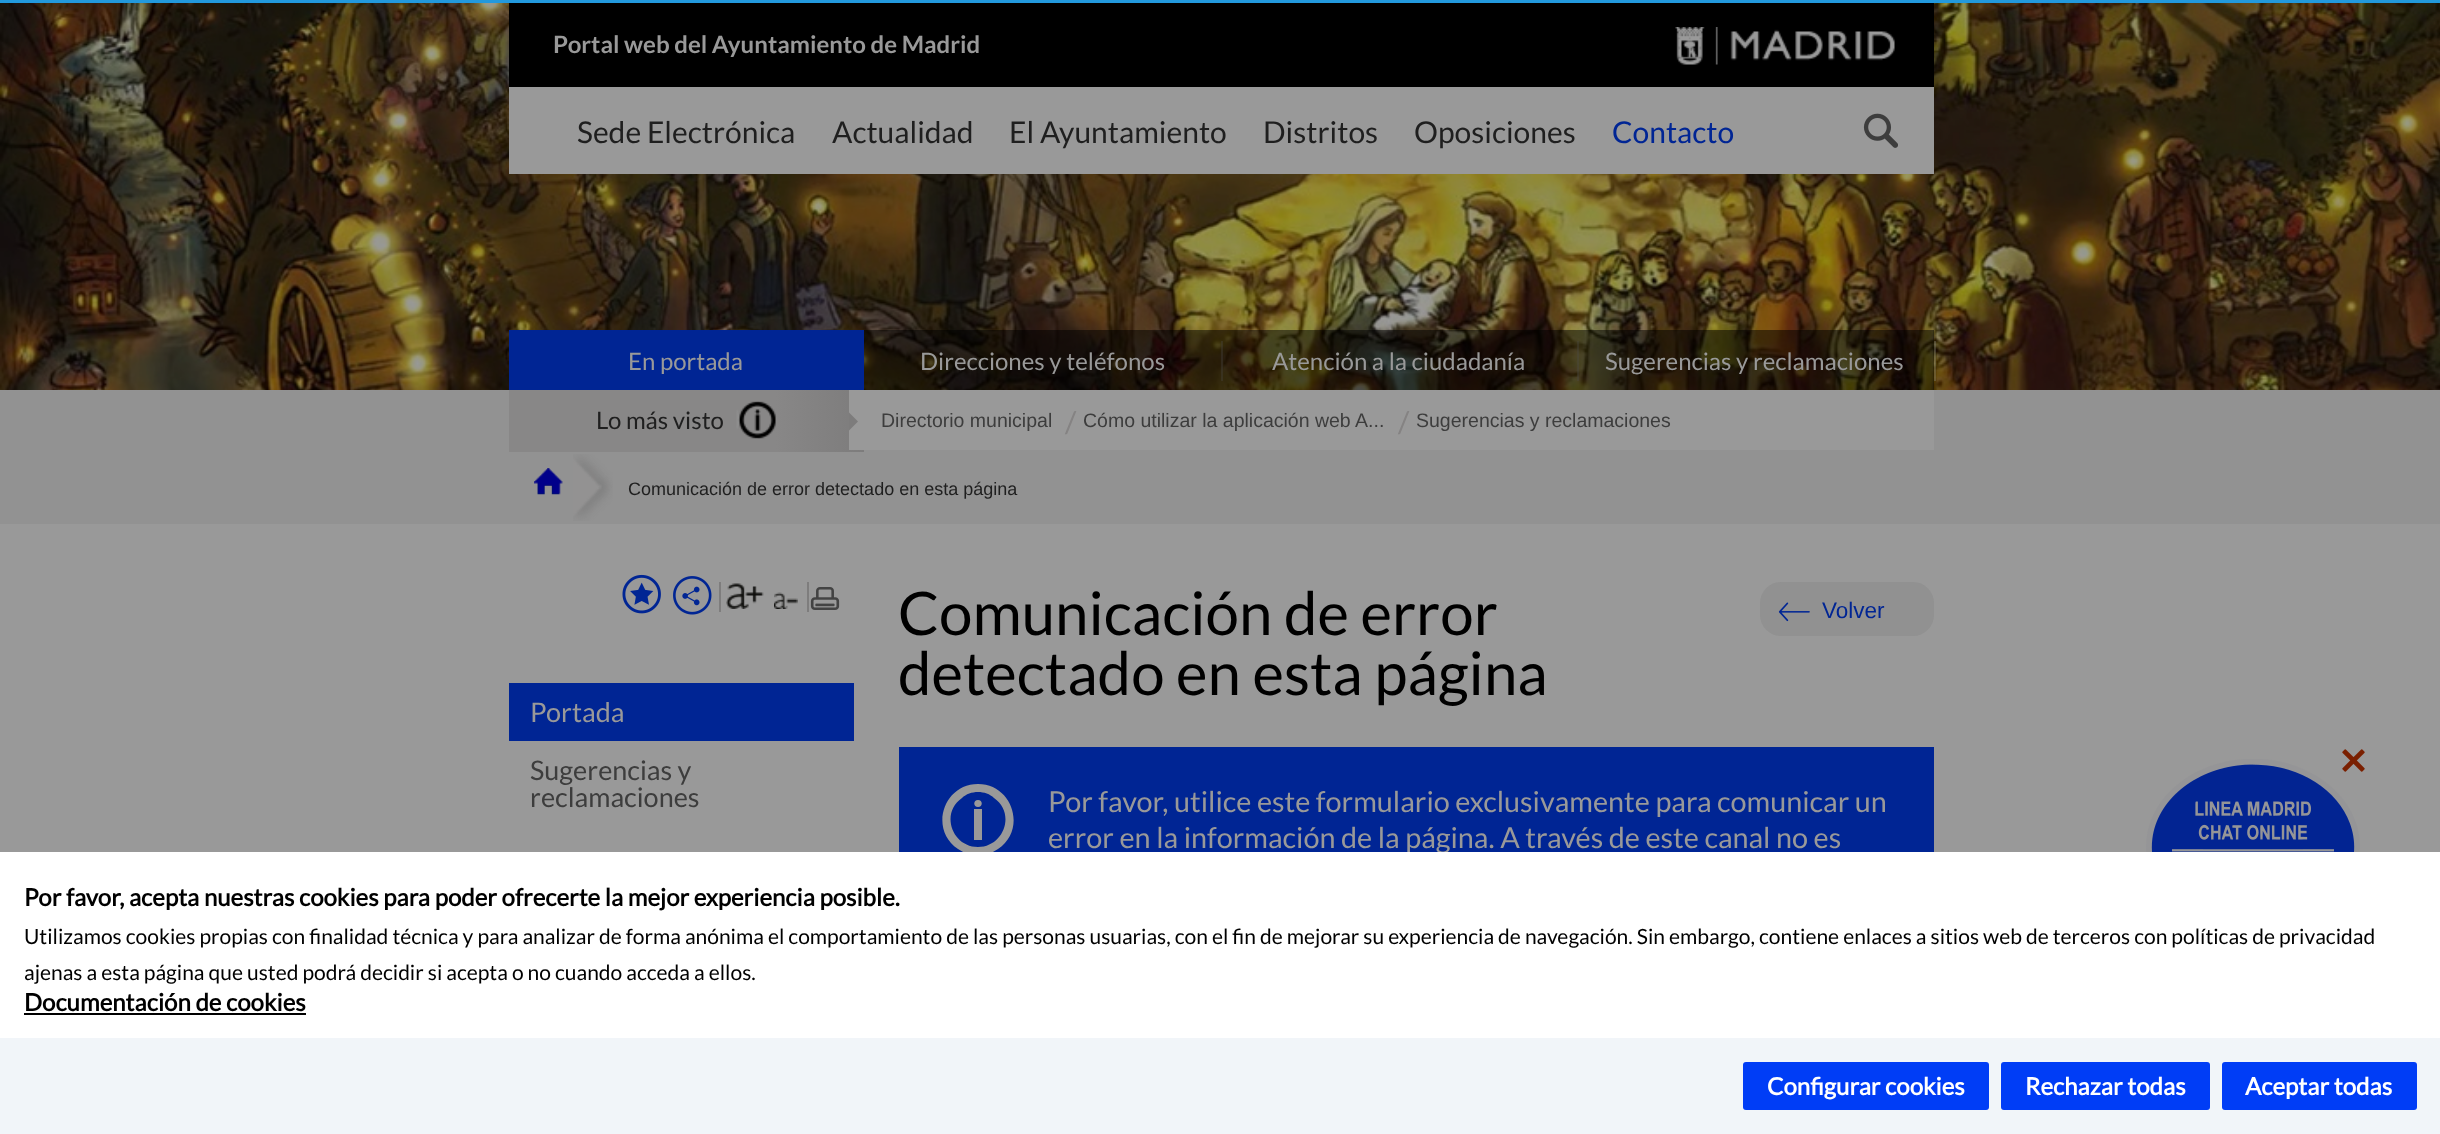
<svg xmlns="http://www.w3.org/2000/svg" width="2440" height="1134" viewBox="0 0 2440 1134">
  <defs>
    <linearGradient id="g1" gradientUnits="userSpaceOnUse" x1="509" y1="421" x2="864" y2="421"><stop offset="0" stop-color="#888787"/><stop offset="0.75" stop-color="#888787"/><stop offset="1" stop-color="#7d7c7c"/></linearGradient>
  </defs>
  <rect width="100%" height="100%" fill="#999"/>
  <path d="M0 0h2440v3H0z" fill="#29d"/>
  <image x="0" y="3" width="2440" height="387" href="img/1.png"/>
  <path d="M509 3h1425v84H509z" fill="#000"/>
  <image x="1675" y="27" width="220" height="38" href="img/2.png"/>
  <path d="M509 87h1425v87H509z" fill="#999"/>
  <image x="1863" y="113" width="35" height="35" href="img/3.png"/>
  <path d="M509 330h355v60H509z" fill="#002594"/>
  <path d="M864 330h357v60H864z" fill="#00000082"/>
  <path d="M1221 341h2v40H1221z" fill="#9999994d"/>
  <path d="M1221 330h356v60H1221z" fill="#00000082"/>
  <path d="M1577 341h2v40H1577z" fill="#9999994d"/>
  <path d="M1577 330h357v60H1577z" fill="#00000082"/>
  <path d="M1934 341h2v40H1934z" fill="#9999994d"/>
  <path d="M0 390h2440v134H0z" fill="#929292"/>
  <path d="M509 390h355v62H509z" fill="url(#g1)"/>
  <image x="736" y="401" width="40" height="38" href="img/4.png"/>
  <path d="M849 390h1085v60H849z" fill="#999"/>
  <path d="M849 430.5V412.5L858 421.5Z" fill="#7d7c7c"/>
  <image x="534" y="468" width="29" height="27" href="img/5.png"/>
  <image x="573" y="454" width="40" height="67" href="img/6.png"/>
  <image x="622" y="574" width="39" height="40" href="img/7.png"/>
  <image x="673" y="576" width="39" height="39" href="img/8.png"/>
  <path d="M719 582h2v30H719z" fill="#7e7d7d"/>
  <image x="726" y="583" width="38" height="26" href="img/9.png"/>
  <image x="774" y="592" width="24" height="17" href="img/10.png"/>
  <path d="M807 582h2v30H807z" fill="#7e7d7d"/>
  <image x="810" y="587" width="30" height="23" href="img/11.png"/>
  <path d="M509 683h345v58H509z" fill="#002594"/>
  <rect x="1760" y="582" width="174" height="54" rx="21" fill="#919191"/>
  <image x="1778" y="602" width="32" height="20" href="img/12.png"/>
  <path d="M899 747h1035v105H899z" fill="#002594"/>
  <path d="M974 840H982V809H974ZM978 807C983 807 983 800 978 800C973 800 973 807 978 807ZM978 784C943 784 929 830 958 849C964 853 971 855 978 855C985 855 992 853 998 849C1027 830 1013 784 978 784ZM978 847C952 847 940 813 962 798C966 794 972 792 978 792C984 792 990 794 994 798C1016 813 1004 847 978 847Z" fill="#999"/>
  <image x="2146" y="759" width="214" height="93" href="img/14.png"/>
  <image x="2342" y="749" width="23" height="23" href="img/13.png"/>
  <path d="M0 1038h2440v96H0z" fill="#f1f5f9"/>
  <rect x="1743" y="1062" width="246" height="48" rx="3" fill="#003df6"/>
  <rect x="2001" y="1062" width="209" height="48" rx="3" fill="#003df6"/>
  <rect x="2222" y="1062" width="195" height="48" rx="3" fill="#003df6"/>
  <text x="553" y="53" font-family="Lato" font-size="24" font-weight="bold" fill="#999">Portal web del Ayuntamiento de Madrid</text>
  <g font-family="Lato" font-size="30" fill="#1f1f1f">
    <text x="577" y="143">Sede Electrónica</text>
    <text x="832" y="143">Actualidad</text>
    <text x="1009" y="143">El Ayuntamiento</text>
    <text x="1263" y="143">Distritos</text>
    <text x="1414" y="143">Oposiciones</text>
  </g>
  <text x="1612" y="143" font-family="Lato" font-size="30" fill="#002594">Contacto</text>
  <g font-family="Lato" font-size="24" fill="#999">
    <text x="628" y="370">En portada</text>
    <text x="920" y="370">Direcciones y teléfonos</text>
    <text x="1272" y="370">Atención a la ciudadanía</text>
    <text x="1605" y="370">Sugerencias y reclamaciones</text>
  </g>
  <text x="596" y="429" font-family="Lato" font-size="24" fill="#1f1f1f">Lo más visto</text>
  <text x="881" y="427" font-family="Liberation Sans" font-size="19.5" fill="#3d3d3d">Directorio municipal</text>
  <text x="1065" y="433" font-family="Lato" font-size="30" fill="#858383">/</text>
  <text x="1083" y="427" font-family="Liberation Sans" font-size="19.5" fill="#3d3d3d">Cómo utilizar la aplicación web A...</text>
  <text x="1398" y="433" font-family="Lato" font-size="30" fill="#858383">/</text>
  <text x="1416" y="427" font-family="Liberation Sans" font-size="19.5" fill="#3d3d3d">Sugerencias y reclamaciones</text>
  <text x="628" y="495" font-family="Liberation Sans" font-size="18" fill="#1f1f1f">Comunicación de error detectado en esta página</text>
  <text x="530" y="722" font-family="Lato" font-size="27" fill="#999">Portada</text>
  <g font-family="Lato" font-size="27" fill="#3d3d3d">
    <text x="530" y="780">Sugerencias y</text>
    <text x="530" y="807">reclamaciones</text>
  </g>
  <g font-family="Lato" font-size="60" fill="#000">
    <text x="898" y="635">Comunicación de error</text>
    <text x="898" y="695">detectado en esta página</text>
  </g>
  <text x="1822" y="618" font-family="Liberation Sans" font-size="22.5" fill="#002594">Volver</text>
  <g font-family="Lato" font-size="28.8" fill="#999">
    <text x="1048" y="812">Por favor, utilice este formulario exclusivamente para comunicar un</text>
    <text x="1048" y="848">error en la información de la página. A través de este canal no es</text>
  </g>
  <path d="M0 852h2440v186H0z" fill="#fff"/>
  <text x="24" y="906" font-family="'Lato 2'" font-size="24" font-weight="bold" fill="#000">Por favor, acepta nuestras cookies para poder ofrecerte la mejor experiencia posible.</text>
  <g font-family="Lato" font-size="21" fill="#000">
    <text x="24" y="944">Utilizamos cookies propias con finalidad técnica y para analizar de forma anónima el comportamiento de las personas usuarias, con el fin de mejorar su experiencia de navegación. Sin embargo, contiene enlaces a sitios web de terceros con políticas de privacidad</text>
    <text x="24" y="980">ajenas a esta página que usted podrá decidir si acepta o no cuando acceda a ellos.</text>
  </g>
  <text x="24" y="1011" font-family="'Lato 2'" font-size="24" font-weight="bold" fill="#000">Documentación de cookies</text>
  <path d="M24 1013h282v2H24z" fill="#000"/>
  <g font-family="'Lato 2'" font-size="24" font-weight="bold" fill="#fff">
    <text x="1767" y="1095">Configurar cookies</text>
    <text x="2025" y="1095">Rechazar todas</text>
    <text x="2245" y="1095">Aceptar todas</text>
  </g>
</svg>
